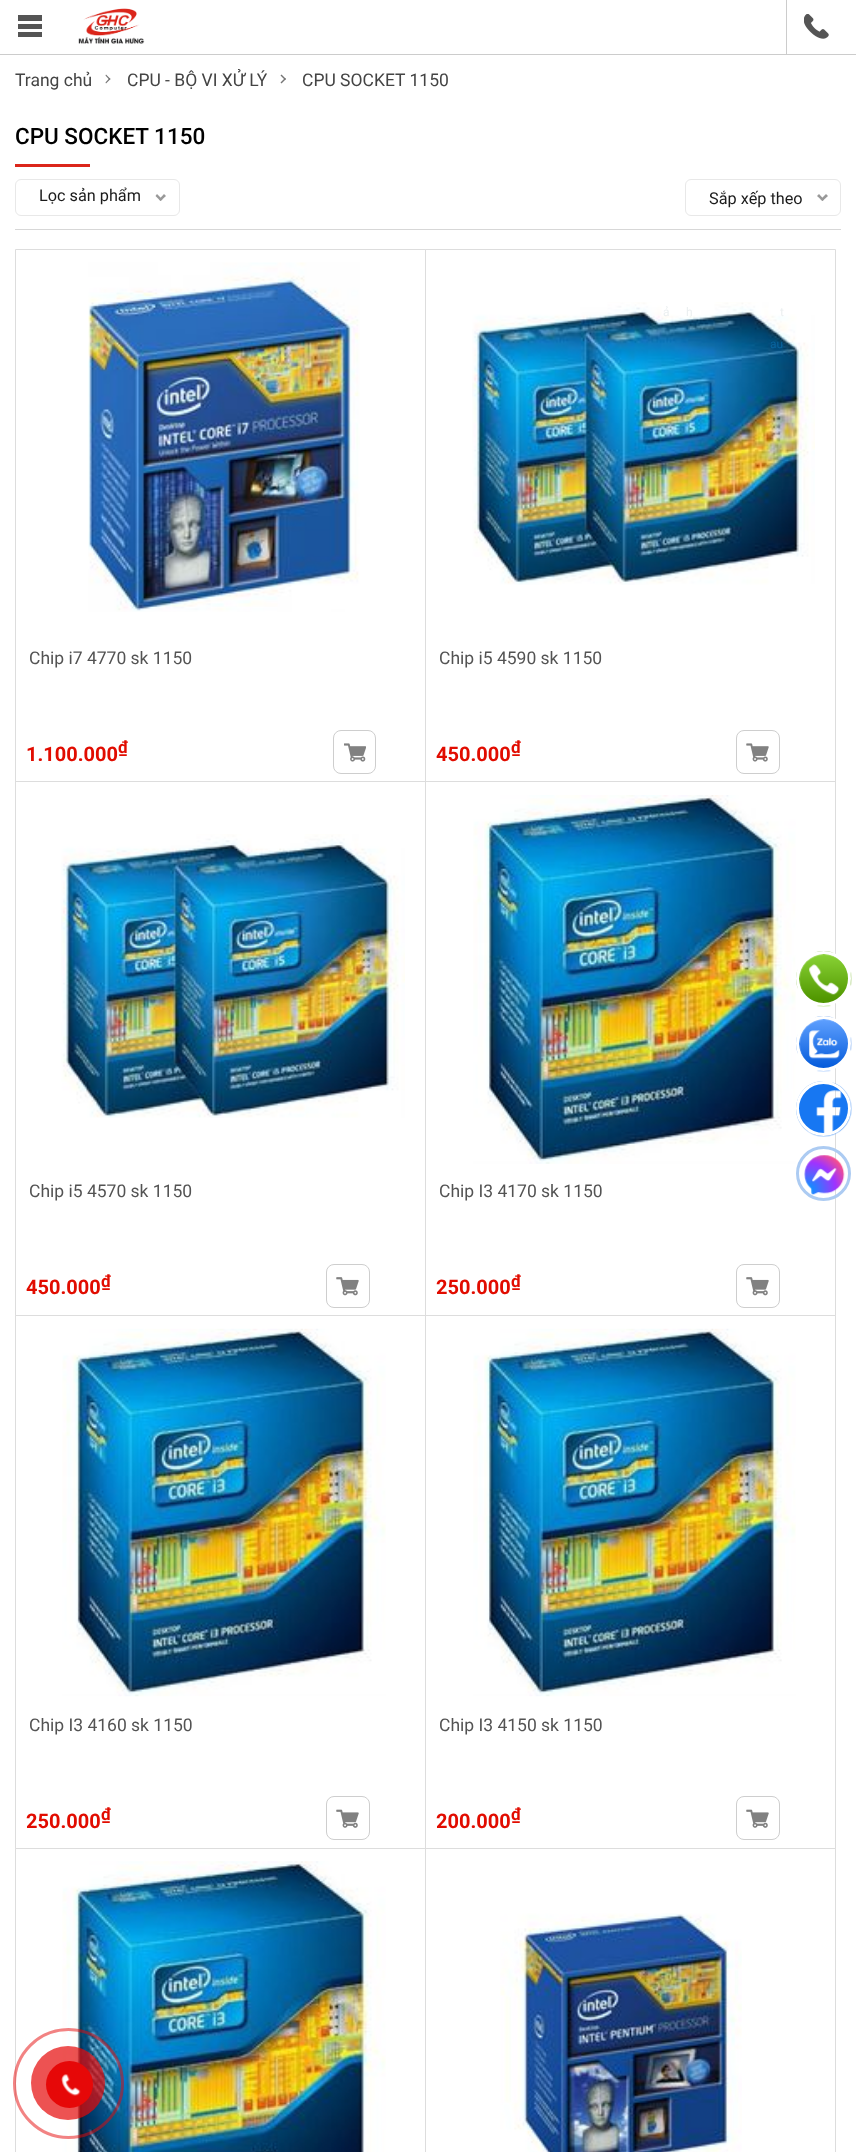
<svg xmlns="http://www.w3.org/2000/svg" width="856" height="2152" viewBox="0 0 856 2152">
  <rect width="100%" height="100%" fill="#fff"/>
  <path d="M0 54h856v1H0z" fill="#ccc"/>
  <image x="78" y="8" width="67" height="36" href="img/1.png"/>
  <path d="M786 0h1v54H786z" fill="#ccc"/>
  <image x="804" y="14" width="25" height="25" href="img/2.png"/>
  <path d="M18 15h24v6H18z" fill="#555"/>
  <path d="M18 24h24v5H18z" fill="#555"/>
  <path d="M18 32h24v5H18z" fill="#555"/>
  <path d="M105.5 75.5L106 74.5L110.5 79L109.5 80Z" fill="#757575"/>
  <path d="M105.5 82.5L109.5 78L110.5 79L106 83.5Z" fill="#757575"/>
  <path d="M280.5 75.5L281.5 74.5L286 79L285 80Z" fill="#757575"/>
  <path d="M280.5 82.5L285 78L286 79L281.5 83.5Z" fill="#757575"/>
  <path d="M15 229h826v1H15z" fill="#d7d7d7"/>
  <path d="M15 164h75v3H15z" fill="#db261b"/>
  <rect x="15.5" y="179.5" width="164" height="36" rx="5.5" fill="none" stroke="#e8e8e8"/>
  <path d="M164 194L166 196L160.5 201L159 199.5Z" fill="#999"/>
  <path d="M157 194L162.5 199.5L160.5 201L155.5 196Z" fill="#999"/>
  <rect x="685.5" y="179.5" width="155" height="36" rx="5.5" fill="none" stroke="#e8e8e8"/>
  <path d="M826 194L828 196L822.5 201L820.5 199.5Z" fill="#999"/>
  <path d="M819 194L824 199.5L822.5 201L817 196Z" fill="#999"/>
  <path d="M15.5 249.5h410v533H15.5z" fill="none" stroke="#ddd"/>
  <image x="88" y="262" width="272" height="350" href="img/3.png"/>
  <rect x="333.5" y="730.5" width="42" height="43" rx="7.5" fill="none" stroke="#cecece"/>
  <image x="344" y="743" width="22" height="19" href="img/4.png"/>
  <path d="M425.5 249.5h410v533H425.5z" fill="none" stroke="#ddd"/>
  <image x="472" y="302" width="343" height="283" href="img/5.png"/>
  <rect x="736.5" y="730.5" width="43" height="43" rx="7.5" fill="none" stroke="#cecece"/>
  <image x="746" y="743" width="23" height="19" href="img/6.png"/>
  <path d="M16 782h409v1H16z" fill="#fff"/>
  <path d="M15.5 781.5h410v534H15.5z" fill="none" stroke="#ddd"/>
  <image x="61" y="834" width="344" height="284" href="img/7.png"/>
  <rect x="326.5" y="1264.5" width="43" height="43" rx="7.5" fill="none" stroke="#cecece"/>
  <image x="336" y="1277" width="23" height="19" href="img/8.png"/>
  <path d="M426 782h409v1H426z" fill="#fff"/>
  <path d="M425.5 781.5h410v534H425.5z" fill="none" stroke="#ddd"/>
  <image x="473" y="795" width="323" height="369" href="img/9.png"/>
  <rect x="736.5" y="1264.5" width="43" height="43" rx="7.5" fill="none" stroke="#cecece"/>
  <image x="746" y="1277" width="23" height="19" href="img/8.png"/>
  <path d="M15.5 1315.5h410v533H15.5z" fill="none" stroke="#ddd"/>
  <image x="62" y="1328" width="324" height="369" href="img/10.png"/>
  <rect x="326.5" y="1796.5" width="43" height="43" rx="7.5" fill="none" stroke="#cecece"/>
  <image x="336" y="1809" width="23" height="19" href="img/11.png"/>
  <path d="M425.5 1315.5h410v533H425.5z" fill="none" stroke="#ddd"/>
  <image x="473" y="1328" width="323" height="369" href="img/12.png"/>
  <rect x="736.5" y="1796.5" width="43" height="43" rx="7.5" fill="none" stroke="#cecece"/>
  <image x="746" y="1809" width="23" height="19" href="img/11.png"/>
  <path d="M15.5 1848.5h410v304H15.5z" fill="none" stroke="#ddd"/>
  <image x="62" y="1861" width="324" height="291" href="img/13.png"/>
  <path d="M425.5 1848.5h410v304H425.5z" fill="none" stroke="#ddd"/>
  <image x="500" y="1913" width="242" height="239" href="img/14.png"/>
  <image x="796" y="951" width="56" height="56" href="img/15.png"/>
  <circle cx="823.5" cy="978.5" r="26" fill="none" stroke="#fff" stroke-width="3"/>
  <image x="796" y="1016" width="56" height="56" href="img/16.png"/>
  <circle cx="823.5" cy="1043.5" r="26" fill="none" stroke="#fff" stroke-width="3"/>
  <image x="796" y="1081" width="56" height="56" href="img/17.png"/>
  <circle cx="823.5" cy="1108.5" r="26" fill="none" stroke="#fff" stroke-width="3"/>
  <image x="804" y="1155" width="41" height="40" href="img/18.png"/>
  <circle cx="823.5" cy="1173.5" r="26" fill="none" stroke="#accbf2" stroke-width="3"/>
  <circle cx="68.5" cy="2083.5" r="54" fill="none" stroke="#e6080880" stroke-width="3"/>
  <circle cx="68" cy="2083" r="37" fill="#e60808b3"/>
  <circle cx="69.5" cy="2084.5" r="23.5" fill="#e60808"/>
  <image x="61" y="2074" width="20" height="22" href="img/19.png"/>
  <g font-family="Roboto" font-size="17.5" fill="#444">
    <text x="15" y="86">Trang chủ</text>
    <text x="127" y="86">CPU - BỘ VI XỬ LÝ</text>
    <text x="302" y="86">CPU SOCKET 1150</text>
  </g>
  <text x="15" y="144" font-family="Roboto" font-size="22.5" font-weight="500" fill="#000">CPU SOCKET 1150</text>
  <g font-family="Roboto" font-size="16.25" fill="#1b1b1b">
    <text x="39" y="201">Lọc sản phẩm</text>
    <text x="709" y="204">Sắp xếp theo</text>
  </g>
  <g font-family="Roboto" font-size="12" fill="#ebeff0">
    <text x="663" y="316">ả</text>
    <text x="686" y="316">h</text>
    <text x="780" y="316">t</text>
  </g>
  <text x="770" y="348" font-family="Roboto" font-size="12" fill="#09659f">au</text>
  <text x="29" y="664" font-family="Roboto" font-size="17.5" fill="#535353">Chip i7 4770 sk 1150</text>
  <text x="26" y="761" font-family="Roboto" font-size="20" font-weight="bold" fill="#e10c00">1.100.000</text>
  <text x="118" y="753" font-family="Roboto" font-size="17" font-weight="bold" fill="#e10c00">₫</text>
  <text x="439" y="664" font-family="Roboto" font-size="17.5" fill="#535353">Chip i5 4590 sk 1150</text>
  <text x="436" y="761" font-family="Roboto" font-size="20" font-weight="bold" fill="#e10c00">450.000</text>
  <text x="511" y="753" font-family="Roboto" font-size="17" font-weight="bold" fill="#e10c00">₫</text>
  <text x="29" y="1197" font-family="Roboto" font-size="17.5" fill="#535353">Chip i5 4570 sk 1150</text>
  <text x="26" y="1294" font-family="Roboto" font-size="20" font-weight="bold" fill="#e10c00">450.000</text>
  <text x="101" y="1287" font-family="Roboto" font-size="17" font-weight="bold" fill="#e10c00">₫</text>
  <text x="439" y="1197" font-family="Roboto" font-size="17.5" fill="#535353">Chip I3 4170 sk 1150</text>
  <text x="436" y="1294" font-family="Roboto" font-size="20" font-weight="bold" fill="#e10c00">250.000</text>
  <text x="511" y="1287" font-family="Roboto" font-size="17" font-weight="bold" fill="#e10c00">₫</text>
  <text x="29" y="1731" font-family="Roboto" font-size="17.5" fill="#535353">Chip I3 4160 sk 1150</text>
  <text x="26" y="1828" font-family="Roboto" font-size="20" font-weight="bold" fill="#e10c00">250.000</text>
  <text x="101" y="1820" font-family="Roboto" font-size="17" font-weight="bold" fill="#e10c00">₫</text>
  <text x="439" y="1731" font-family="Roboto" font-size="17.5" fill="#535353">Chip I3 4150 sk 1150</text>
  <text x="436" y="1828" font-family="Roboto" font-size="20" font-weight="bold" fill="#e10c00">200.000</text>
  <text x="511" y="1820" font-family="Roboto" font-size="17" font-weight="bold" fill="#e10c00">₫</text>
</svg>
